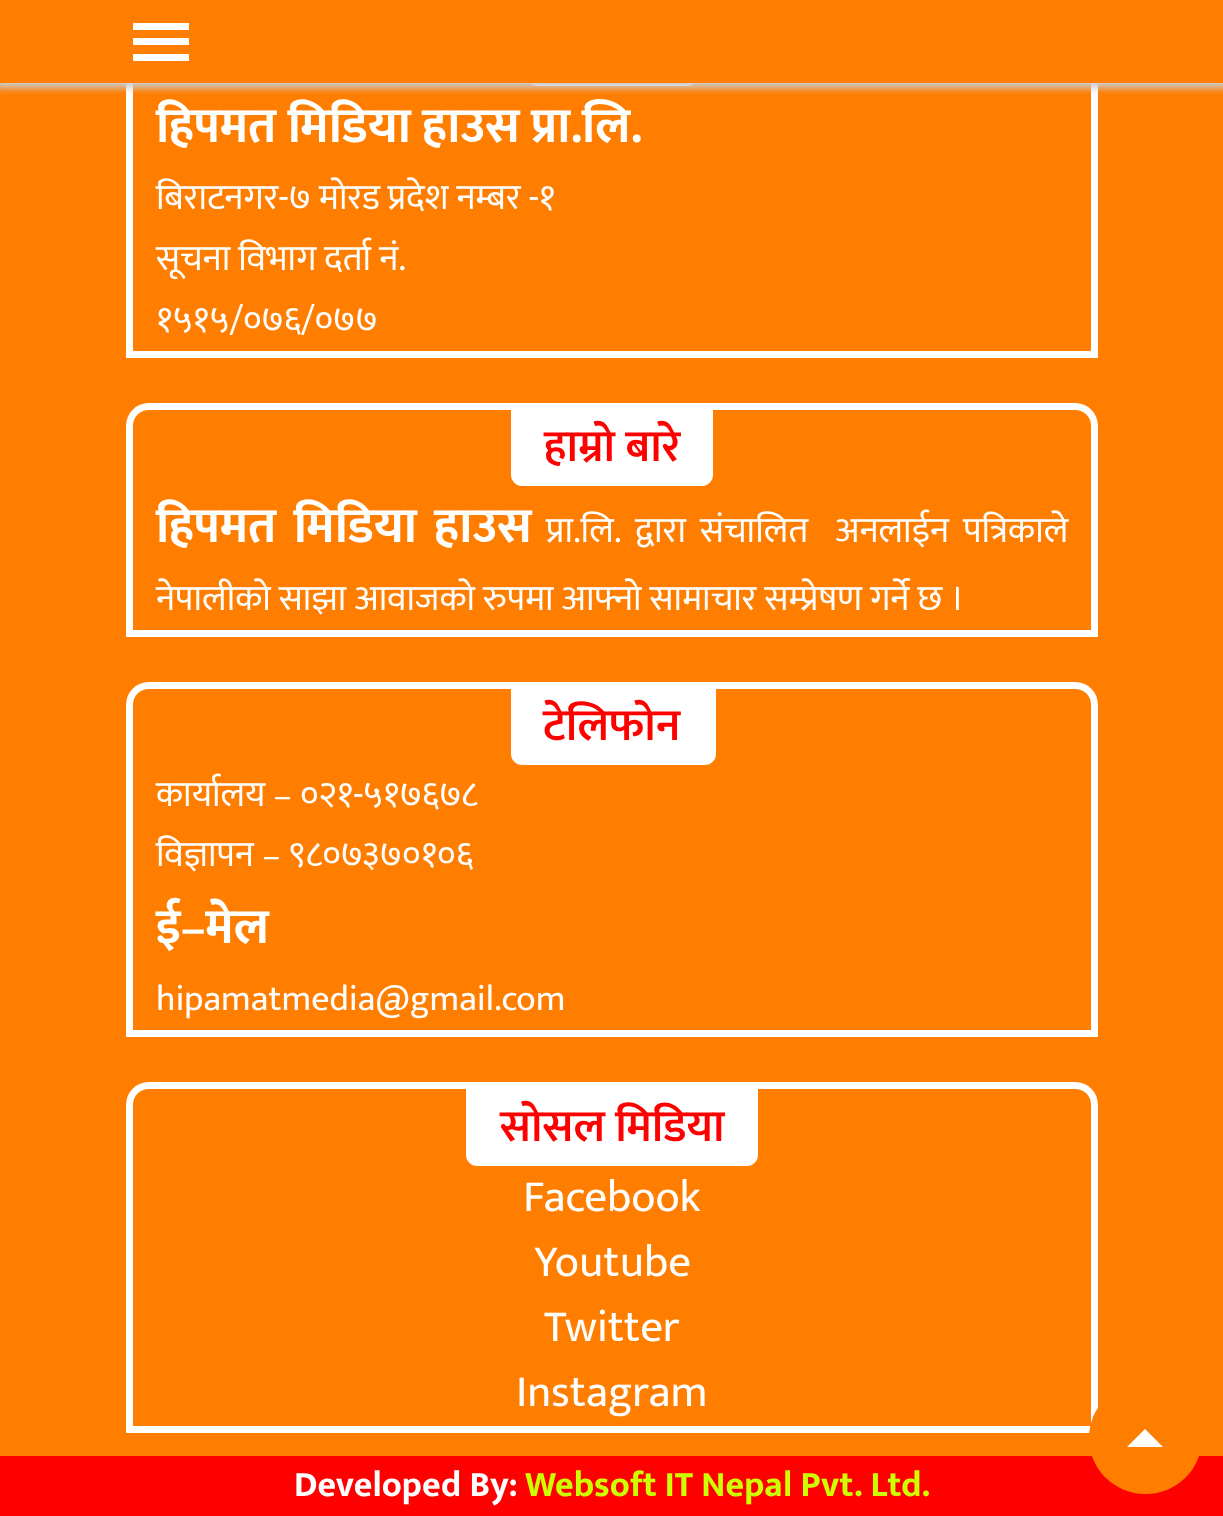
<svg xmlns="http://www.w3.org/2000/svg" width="1223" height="1516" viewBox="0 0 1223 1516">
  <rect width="100%" height="100%" fill="#ff7e00"/>
  <path d="M129.5 5.5h965v349H129.5z" fill="none" stroke="#fff" stroke-width="7"/>
  <path d="M527 9H698V75C698 81 693 86 687 86H538C532 86 527 81 527 75Z" fill="#fff"/>
  <path d="M-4 -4h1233v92H-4z" fill="#ccc" filter="blur(3.5px)"/>
  <path d="M0 0h1223v83H0z" fill="#ff7e00"/>
  <path d="M133 23h56v7H133z" fill="#fff"/>
  <path d="M133 38h56v7H133z" fill="#fff"/>
  <path d="M133 54h56v7H133z" fill="#fff"/>
  <path d="M149 406.5H1075C1086 406.5 1094.5 415 1094.5 426V633.5H129.5V426C129.5 415 138 406.5 149 406.5Z" fill="none" stroke="#fff" stroke-width="7"/>
  <path d="M511 410H713V475C713 481 708 486 702 486H522C516 486 511 481 511 475Z" fill="#fff"/>
  <path d="M149 685.5H1075C1086 685.5 1094.5 694 1094.5 705V1033.5H129.5V705C129.5 694 138 685.5 149 685.5Z" fill="none" stroke="#fff" stroke-width="7"/>
  <path d="M511 689H716V754C716 760 711 765 705 765H522C516 765 511 760 511 754Z" fill="#fff"/>
  <path d="M149 1085.5H1075C1086 1085.5 1094.5 1094 1094.5 1105V1429.5H129.5V1105C129.5 1094 138 1085.5 149 1085.5Z" fill="none" stroke="#fff" stroke-width="7"/>
  <path d="M466 1089H758V1155C758 1161 753 1166 747 1166H477C471 1166 466 1161 466 1155Z" fill="#fff"/>
  <path d="M0 1456h1223v60H0z" fill="#f00"/>
  <rect x="1089" y="1382" width="113" height="112" rx="56" fill="#ff7e00"/>
  <path d="M1163 1447H1127L1145 1429Z" fill="#fff"/>
  <text x="156" y="142" font-family="Ek Mukta" font-size="49.5" font-weight="bold" fill="#fff">हिपमत मिडिया हाउस प्रा.लि.</text>
  <g font-family="Ek Mukta" font-size="36" fill="#fff">
    <text x="156" y="209">बिराटनगर-७ मोरड प्रदेश नम्बर -१</text>
    <text x="156" y="270">सूचना विभाग दर्ता नं.</text>
    <text x="156" y="331">१५१५/०७६/०७७</text>
  </g>
  <text x="544" y="461" font-family="Ek Mukta" font-size="45" font-weight="600" fill="#f00">हाम्रो बारे</text>
  <text x="156" y="542" word-spacing="6" font-family="Ek Mukta" font-size="49.5" font-weight="bold" fill="#fff">हिपमत मिडिया हाउस</text>
  <g font-family="Ek Mukta" font-size="36" fill="#fff">
    <text x="546" y="542" word-spacing="6" xml:space="preserve">प्रा.लि. द्वारा संचालित  अनलाईन पत्रिकाले</text>
    <text x="156" y="610">नेपालीको साझा आवाजको रुपमा आफ्नो सामाचार सम्प्रेषण गर्ने छ ।</text>
  </g>
  <text x="543" y="740" font-family="Ek Mukta" font-size="45" font-weight="600" fill="#f00">टेलिफोन</text>
  <g font-family="Ek Mukta" font-size="36" fill="#fff">
    <text x="156" y="806">कार्यालय – ०२१-५१७६७८</text>
    <text x="156" y="866">विज्ञापन – ९८०७३७०१०६</text>
  </g>
  <text x="156" y="943" font-family="Ek Mukta" font-size="49.5" font-weight="bold" fill="#fff">ई–मेल</text>
  <text x="156" y="1010" font-family="Ek Mukta" font-size="36" fill="#fff">hipamatmedia@gmail.com</text>
  <text x="500" y="1141" font-family="Ek Mukta" font-size="45" font-weight="600" fill="#f00">सोसल मिडिया</text>
  <g font-family="Ek Mukta" font-size="45" fill="#fff">
    <text x="523" y="1211">Facebook</text>
    <text x="534" y="1276">Youtube</text>
    <text x="544" y="1341">Twitter</text>
    <text x="516" y="1406">Instagram</text>
  </g>
  <text x="294" y="1496" font-family="Ek Mukta" font-size="36" font-weight="bold" fill="#fff">Developed By:</text>
  <text x="525" y="1496" font-family="Ek Mukta" font-size="36" font-weight="bold" fill="#cf0">Websoft IT Nepal Pvt. Ltd.</text>
</svg>
